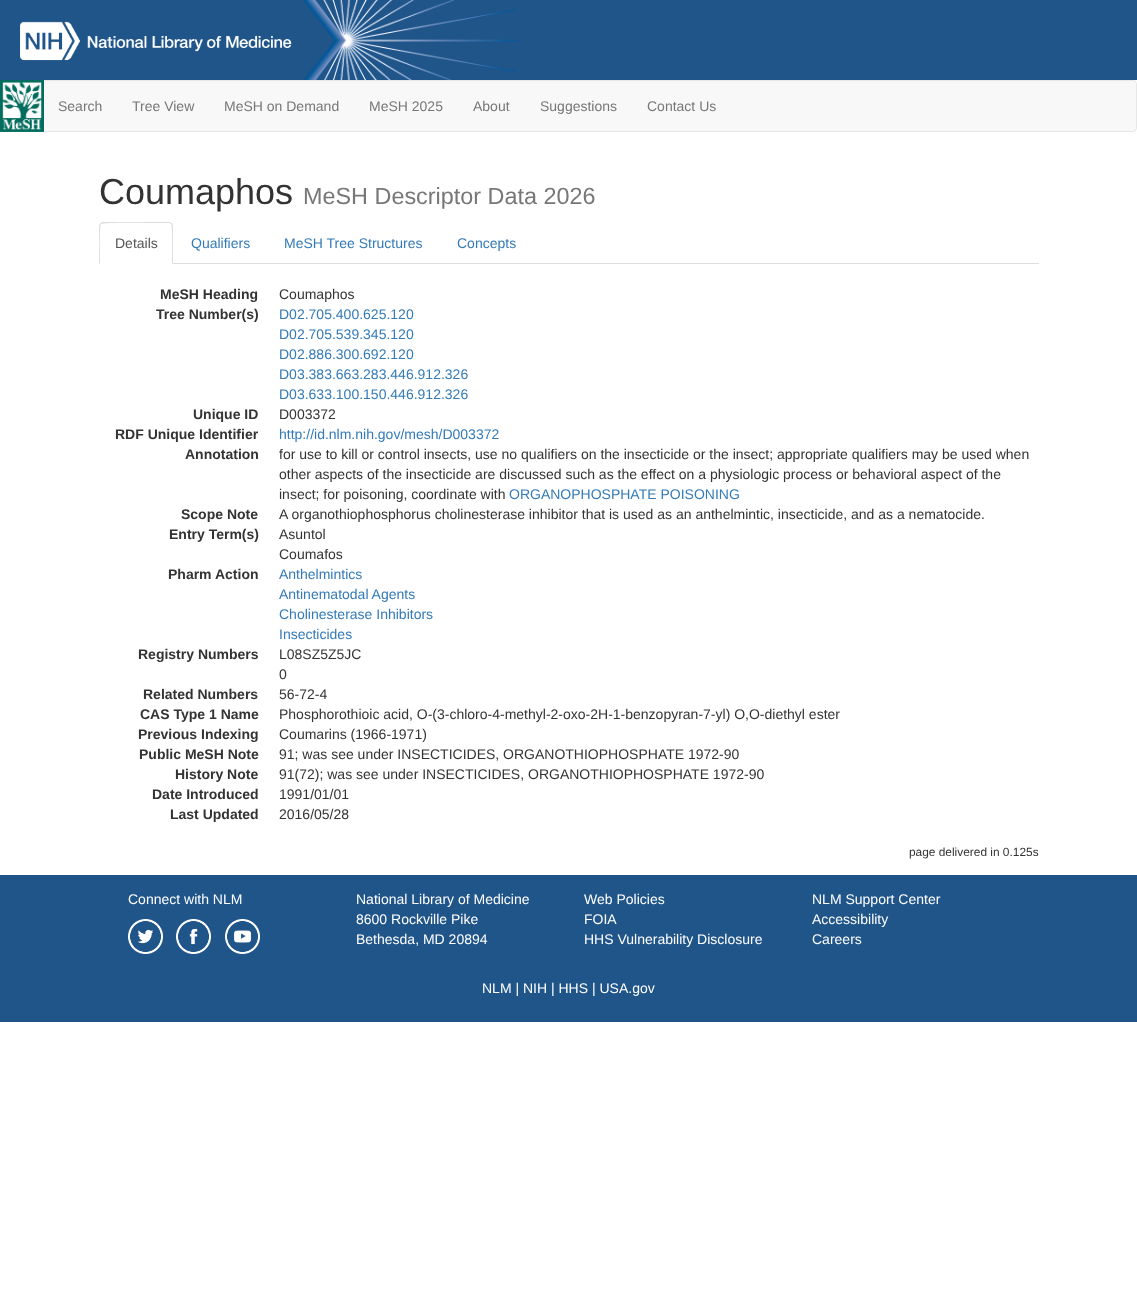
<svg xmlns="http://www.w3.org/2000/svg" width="1137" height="1308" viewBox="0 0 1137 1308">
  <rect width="100%" height="100%" fill="#fff"/>
  <path d="M0 0h1137v80H0z" fill="#20558a"/>
  <image x="303" y="0" width="216" height="80" href="img/1.png"/>
  <image x="20" y="21" width="272" height="40" href="img/2.png"/>
  <rect x="0.5" y="80.5" width="1136" height="51" rx="3.5" fill="#f8f8f8" stroke="#e7e7e7"/>
  <image x="0" y="80" width="44" height="52" href="img/3.png"/>
  <path d="M173 263h866v1H173z" fill="#ddd"/>
  <path d="M103 222L100 223L101 224C103 222 152 223 158 223H169L171 224L172 223L169 222Z" fill="#ddd"/>
  <path d="M173 264V226C173 225 172 224 172 223L171 224C173 226 172 258 172 263Z" fill="#ddd"/>
  <path d="M99 264L100 263C100 258 99 226 101 224L100 223L99 226Z" fill="#ddd"/>
  <path d="M0 875h1137v147H0z" fill="#20558a"/>
  <image x="128" y="919" width="35" height="35" href="img/4.png"/>
  <image x="176" y="919" width="35" height="35" href="img/5.png"/>
  <image x="225" y="919" width="35" height="35" href="img/6.png"/>
  <g font-family="Liberation Sans" font-size="14" fill="#777">
    <text x="58" y="111">Search</text>
    <text x="132" y="111">Tree View</text>
    <text x="224" y="111">MeSH on Demand</text>
    <text x="369" y="111">MeSH 2025</text>
    <text x="473" y="111">About</text>
    <text x="540" y="111">Suggestions</text>
    <text x="647" y="111">Contact Us</text>
  </g>
  <text x="99" y="204" font-family="Liberation Sans" font-size="36" fill="#333">Coumaphos</text>
  <text x="303" y="204" font-family="Liberation Sans" font-size="23.4" fill="#777">MeSH Descriptor Data 2026</text>
  <text x="115" y="248" font-family="Liberation Sans" font-size="14" fill="#555">Details</text>
  <g font-family="Liberation Sans" font-size="14" fill="#337ab7">
    <text x="191" y="248">Qualifiers</text>
    <text x="284" y="248">MeSH Tree Structures</text>
    <text x="457" y="248">Concepts</text>
  </g>
  <text x="160" y="299" font-family="Liberation Sans" font-size="14" font-weight="bold" fill="#333">MeSH Heading</text>
  <text x="279" y="299" font-family="Liberation Sans" font-size="14" fill="#333">Coumaphos</text>
  <text x="156" y="319" font-family="Liberation Sans" font-size="14" font-weight="bold" fill="#333">Tree Number(s)</text>
  <g font-family="Liberation Sans" font-size="14" fill="#337ab7">
    <text x="279" y="319">D02.705.400.625.120</text>
    <text x="279" y="339">D02.705.539.345.120</text>
    <text x="279" y="359">D02.886.300.692.120</text>
    <text x="279" y="379">D03.383.663.283.446.912.326</text>
    <text x="279" y="399">D03.633.100.150.446.912.326</text>
  </g>
  <text x="193" y="419" font-family="Liberation Sans" font-size="14" font-weight="bold" fill="#333">Unique ID</text>
  <text x="279" y="419" font-family="Liberation Sans" font-size="14" fill="#333">D003372</text>
  <text x="115" y="439" font-family="Liberation Sans" font-size="14" font-weight="bold" fill="#333">RDF Unique Identifier</text>
  <text x="279" y="439" font-family="Liberation Sans" font-size="14" fill="#337ab7">http://id.nlm.nih.gov/mesh/D003372</text>
  <text x="185" y="459" font-family="Liberation Sans" font-size="14" font-weight="bold" fill="#333">Annotation</text>
  <g font-family="Liberation Sans" font-size="14" fill="#333">
    <text x="279" y="459">for use to kill or control insects, use no qualifiers on the insecticide or the insect; appropriate qualifiers may be used when</text>
    <text x="279" y="479">other aspects of the insecticide are discussed such as the effect on a physiologic process or behavioral aspect of the</text>
    <text x="279" y="499">insect; for poisoning, coordinate with</text>
  </g>
  <text x="509" y="499" font-family="Liberation Sans" font-size="14" fill="#337ab7">ORGANOPHOSPHATE POISONING</text>
  <text x="181" y="519" font-family="Liberation Sans" font-size="14" font-weight="bold" fill="#333">Scope Note</text>
  <text x="279" y="519" font-family="Liberation Sans" font-size="14" fill="#333">A organothiophosphorus cholinesterase inhibitor that is used as an anthelmintic, insecticide, and as a nematocide.</text>
  <text x="169" y="539" font-family="Liberation Sans" font-size="14" font-weight="bold" fill="#333">Entry Term(s)</text>
  <g font-family="Liberation Sans" font-size="14" fill="#333">
    <text x="279" y="539">Asuntol</text>
    <text x="279" y="559">Coumafos</text>
  </g>
  <text x="168" y="579" font-family="Liberation Sans" font-size="14" font-weight="bold" fill="#333">Pharm Action</text>
  <g font-family="Liberation Sans" font-size="14" fill="#337ab7">
    <text x="279" y="579">Anthelmintics</text>
    <text x="279" y="599">Antinematodal Agents</text>
    <text x="279" y="619">Cholinesterase Inhibitors</text>
    <text x="279" y="639">Insecticides</text>
  </g>
  <text x="138" y="659" font-family="Liberation Sans" font-size="14" font-weight="bold" fill="#333">Registry Numbers</text>
  <g font-family="Liberation Sans" font-size="14" fill="#333">
    <text x="279" y="659">L08SZ5Z5JC</text>
    <text x="279" y="679">0</text>
  </g>
  <text x="143" y="699" font-family="Liberation Sans" font-size="14" font-weight="bold" fill="#333">Related Numbers</text>
  <text x="279" y="699" font-family="Liberation Sans" font-size="14" fill="#333">56-72-4</text>
  <text x="140" y="719" font-family="Liberation Sans" font-size="14" font-weight="bold" fill="#333">CAS Type 1 Name</text>
  <text x="279" y="719" font-family="Liberation Sans" font-size="14" fill="#333">Phosphorothioic acid, O-(3-chloro-4-methyl-2-oxo-2H-1-benzopyran-7-yl) O,O-diethyl ester</text>
  <text x="138" y="739" font-family="Liberation Sans" font-size="14" font-weight="bold" fill="#333">Previous Indexing</text>
  <text x="279" y="739" font-family="Liberation Sans" font-size="14" fill="#333">Coumarins (1966-1971)</text>
  <text x="139" y="759" font-family="Liberation Sans" font-size="14" font-weight="bold" fill="#333">Public MeSH Note</text>
  <text x="279" y="759" font-family="Liberation Sans" font-size="14" fill="#333">91; was see under INSECTICIDES, ORGANOTHIOPHOSPHATE 1972-90</text>
  <text x="175" y="779" font-family="Liberation Sans" font-size="14" font-weight="bold" fill="#333">History Note</text>
  <text x="279" y="779" font-family="Liberation Sans" font-size="14" fill="#333">91(72); was see under INSECTICIDES, ORGANOTHIOPHOSPHATE 1972-90</text>
  <text x="152" y="799" font-family="Liberation Sans" font-size="14" font-weight="bold" fill="#333">Date Introduced</text>
  <text x="279" y="799" font-family="Liberation Sans" font-size="14" fill="#333">1991/01/01</text>
  <text x="170" y="819" font-family="Liberation Sans" font-size="14" font-weight="bold" fill="#333">Last Updated</text>
  <text x="279" y="819" font-family="Liberation Sans" font-size="14" fill="#333">2016/05/28</text>
  <text x="909" y="856" font-family="Liberation Sans" font-size="11.9" fill="#333">page delivered in 0.125s</text>
  <g font-family="Liberation Sans" font-size="14" fill="#fff">
    <text x="128" y="904">Connect with NLM</text>
    <text x="356" y="904">National Library of Medicine</text>
    <text x="356" y="924">8600 Rockville Pike</text>
    <text x="356" y="944">Bethesda, MD 20894</text>
    <text x="584" y="904">Web Policies</text>
    <text x="584" y="924">FOIA</text>
    <text x="584" y="944">HHS Vulnerability Disclosure</text>
    <text x="812" y="904">NLM Support Center</text>
    <text x="812" y="924">Accessibility</text>
    <text x="812" y="944">Careers</text>
    <text x="482" y="993">NLM | NIH | HHS | USA.gov</text>
  </g>
</svg>
